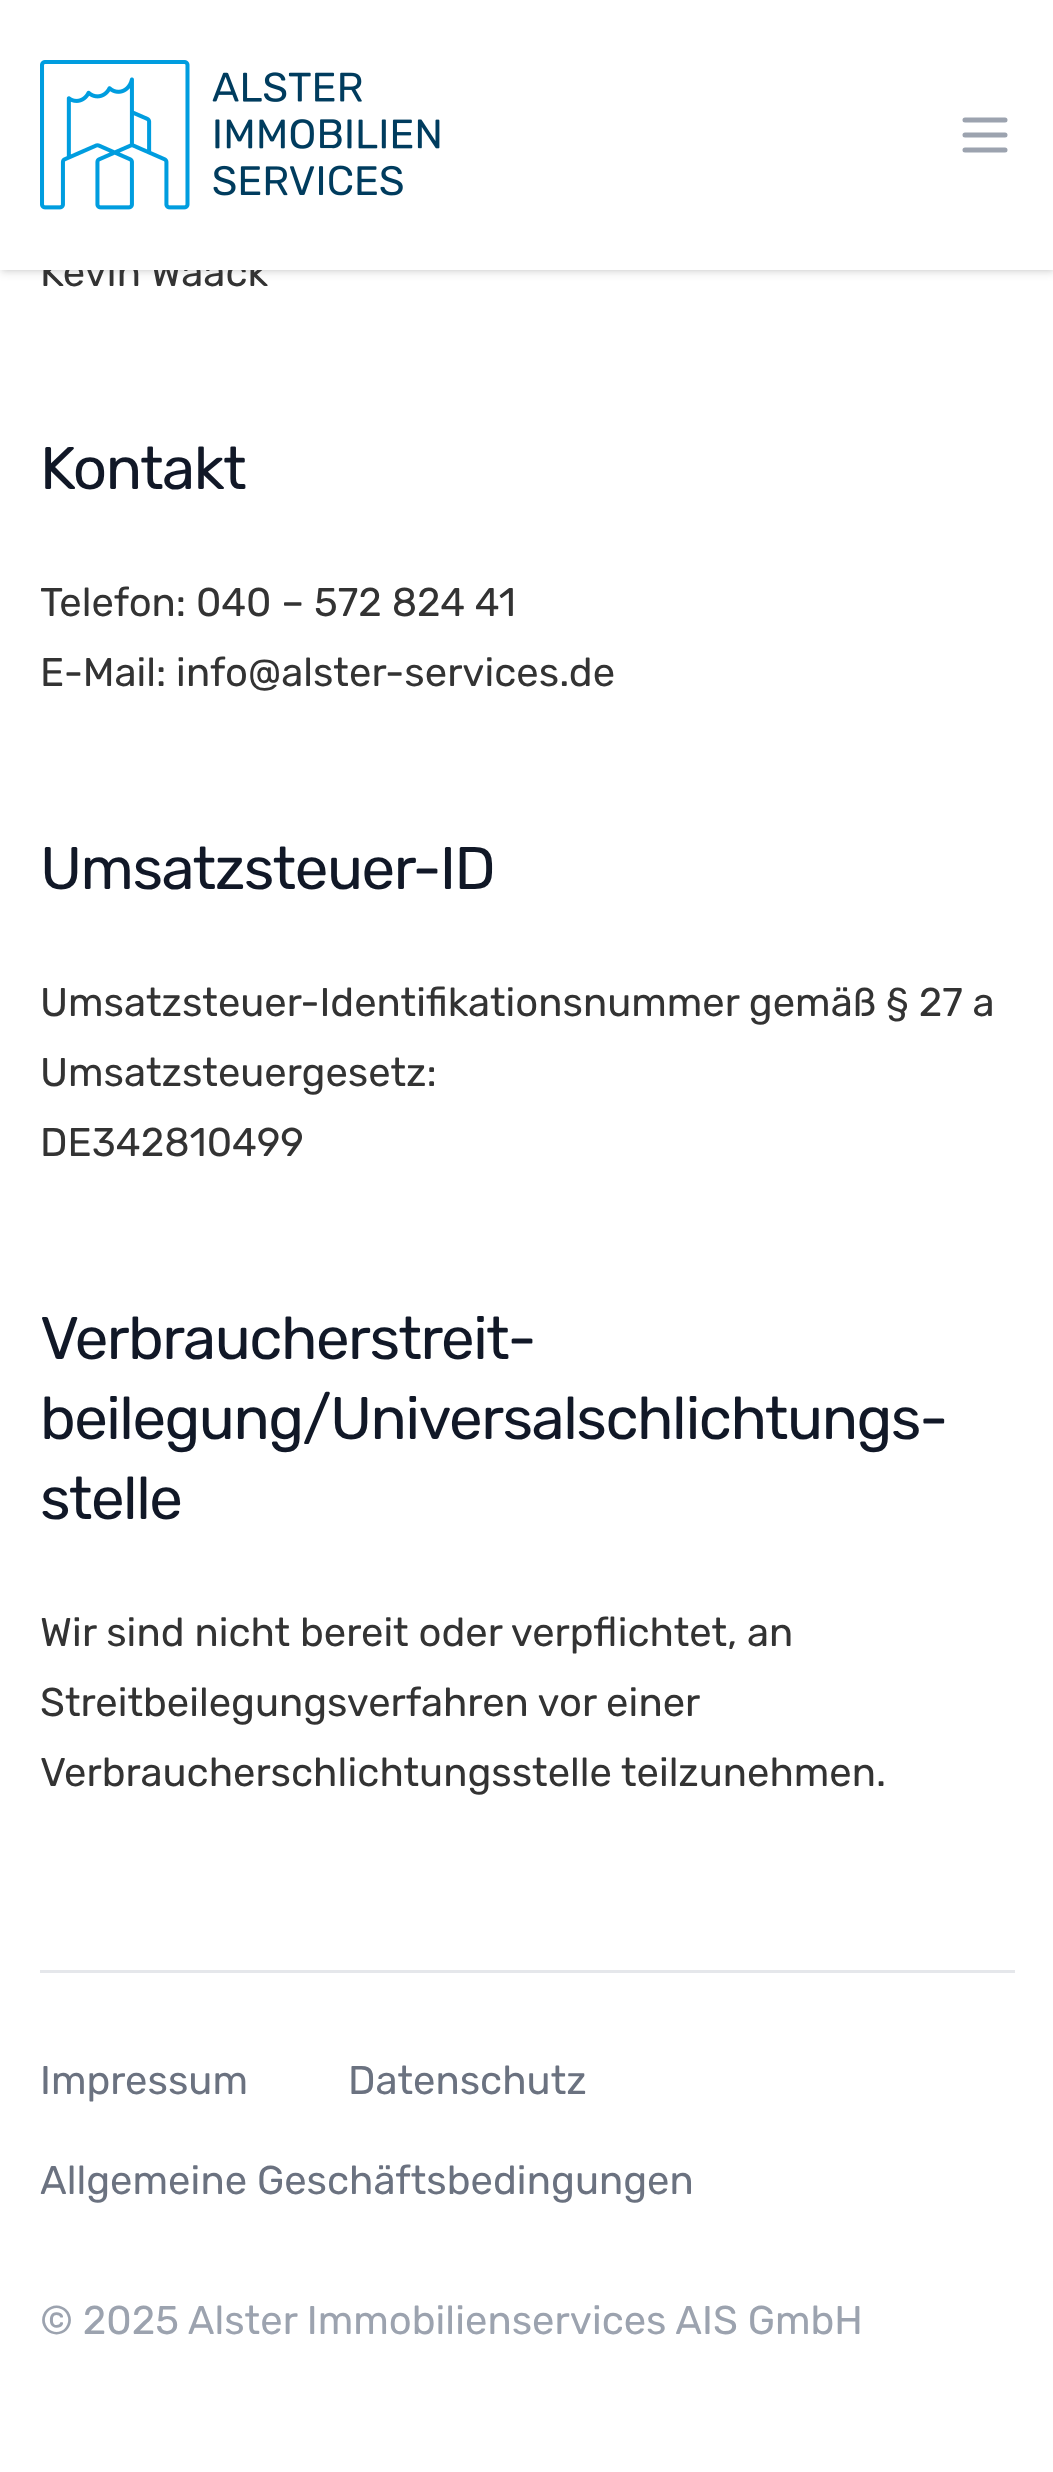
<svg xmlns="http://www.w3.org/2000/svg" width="1053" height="2472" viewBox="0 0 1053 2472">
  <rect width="100%" height="100%" fill="#fff"/>
  <path d="M3 -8h1050v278H3z" fill="#0000001a" filter="blur(2.5px)"/>
  <path d="M0 -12h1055v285H0z" fill="#0000001a" filter="blur(4px)"/>
  <path d="M40 1970h975v3H40z" fill="#e5e7eb"/>
  <text x="40" y="286" font-family="Rubik" font-size="40" fill="#333">Kevin Waack</text>
  <path d="M0 0h1053v270H0z" fill="#fff"/>
  <image x="40" y="60" width="400" height="150" href="img/1.png"/>
  <path d="M965 120H1005M965 135H1005M965 150H1005" fill="none" stroke="#9ca3af" stroke-width="5" stroke-linecap="round" stroke-linejoin="round"/>
  <text x="40" y="489" font-family="Rubik" font-size="60" letter-spacing="-1.5" fill="#111827">Kontakt</text>
  <g font-family="Rubik" font-size="40" fill="#333">
    <text x="40" y="616">Telefon: 040 – 572 824 41</text>
    <text x="40" y="686">E-Mail: info@alster-services.de</text>
  </g>
  <text x="40" y="889" font-family="Rubik" font-size="60" letter-spacing="-1.5" fill="#111827">Umsatzsteuer-ID</text>
  <g font-family="Rubik" font-size="40" fill="#333">
    <text x="40" y="1016">Umsatzsteuer-Identifikationsnummer gemäß § 27 a</text>
    <text x="40" y="1086">Umsatzsteuergesetz:</text>
    <text x="40" y="1156">DE342810499</text>
  </g>
  <g font-family="Rubik" font-size="60" letter-spacing="-1.5" fill="#111827">
    <text x="40" y="1359">Verbraucherstreit-</text>
    <text x="40" y="1439">beilegung/Universalschlichtungs-</text>
    <text x="40" y="1519">stelle</text>
  </g>
  <g font-family="Rubik" font-size="40" fill="#333">
    <text x="40" y="1646">Wir sind nicht bereit oder verpflichtet, an</text>
    <text x="40" y="1716">Streitbeilegungsverfahren vor einer</text>
    <text x="40" y="1786">Verbraucherschlichtungsstelle teilzunehmen.</text>
  </g>
  <g font-family="Rubik" font-size="40" fill="#6b7280">
    <text x="40" y="2094">Impressum</text>
    <text x="348" y="2094">Datenschutz</text>
    <text x="40" y="2194">Allgemeine Geschäftsbedingungen</text>
  </g>
  <text x="40" y="2334" font-family="Rubik" font-size="40" fill="#9ca3af">© 2025 Alster Immobilienservices AIS GmbH</text>
</svg>
